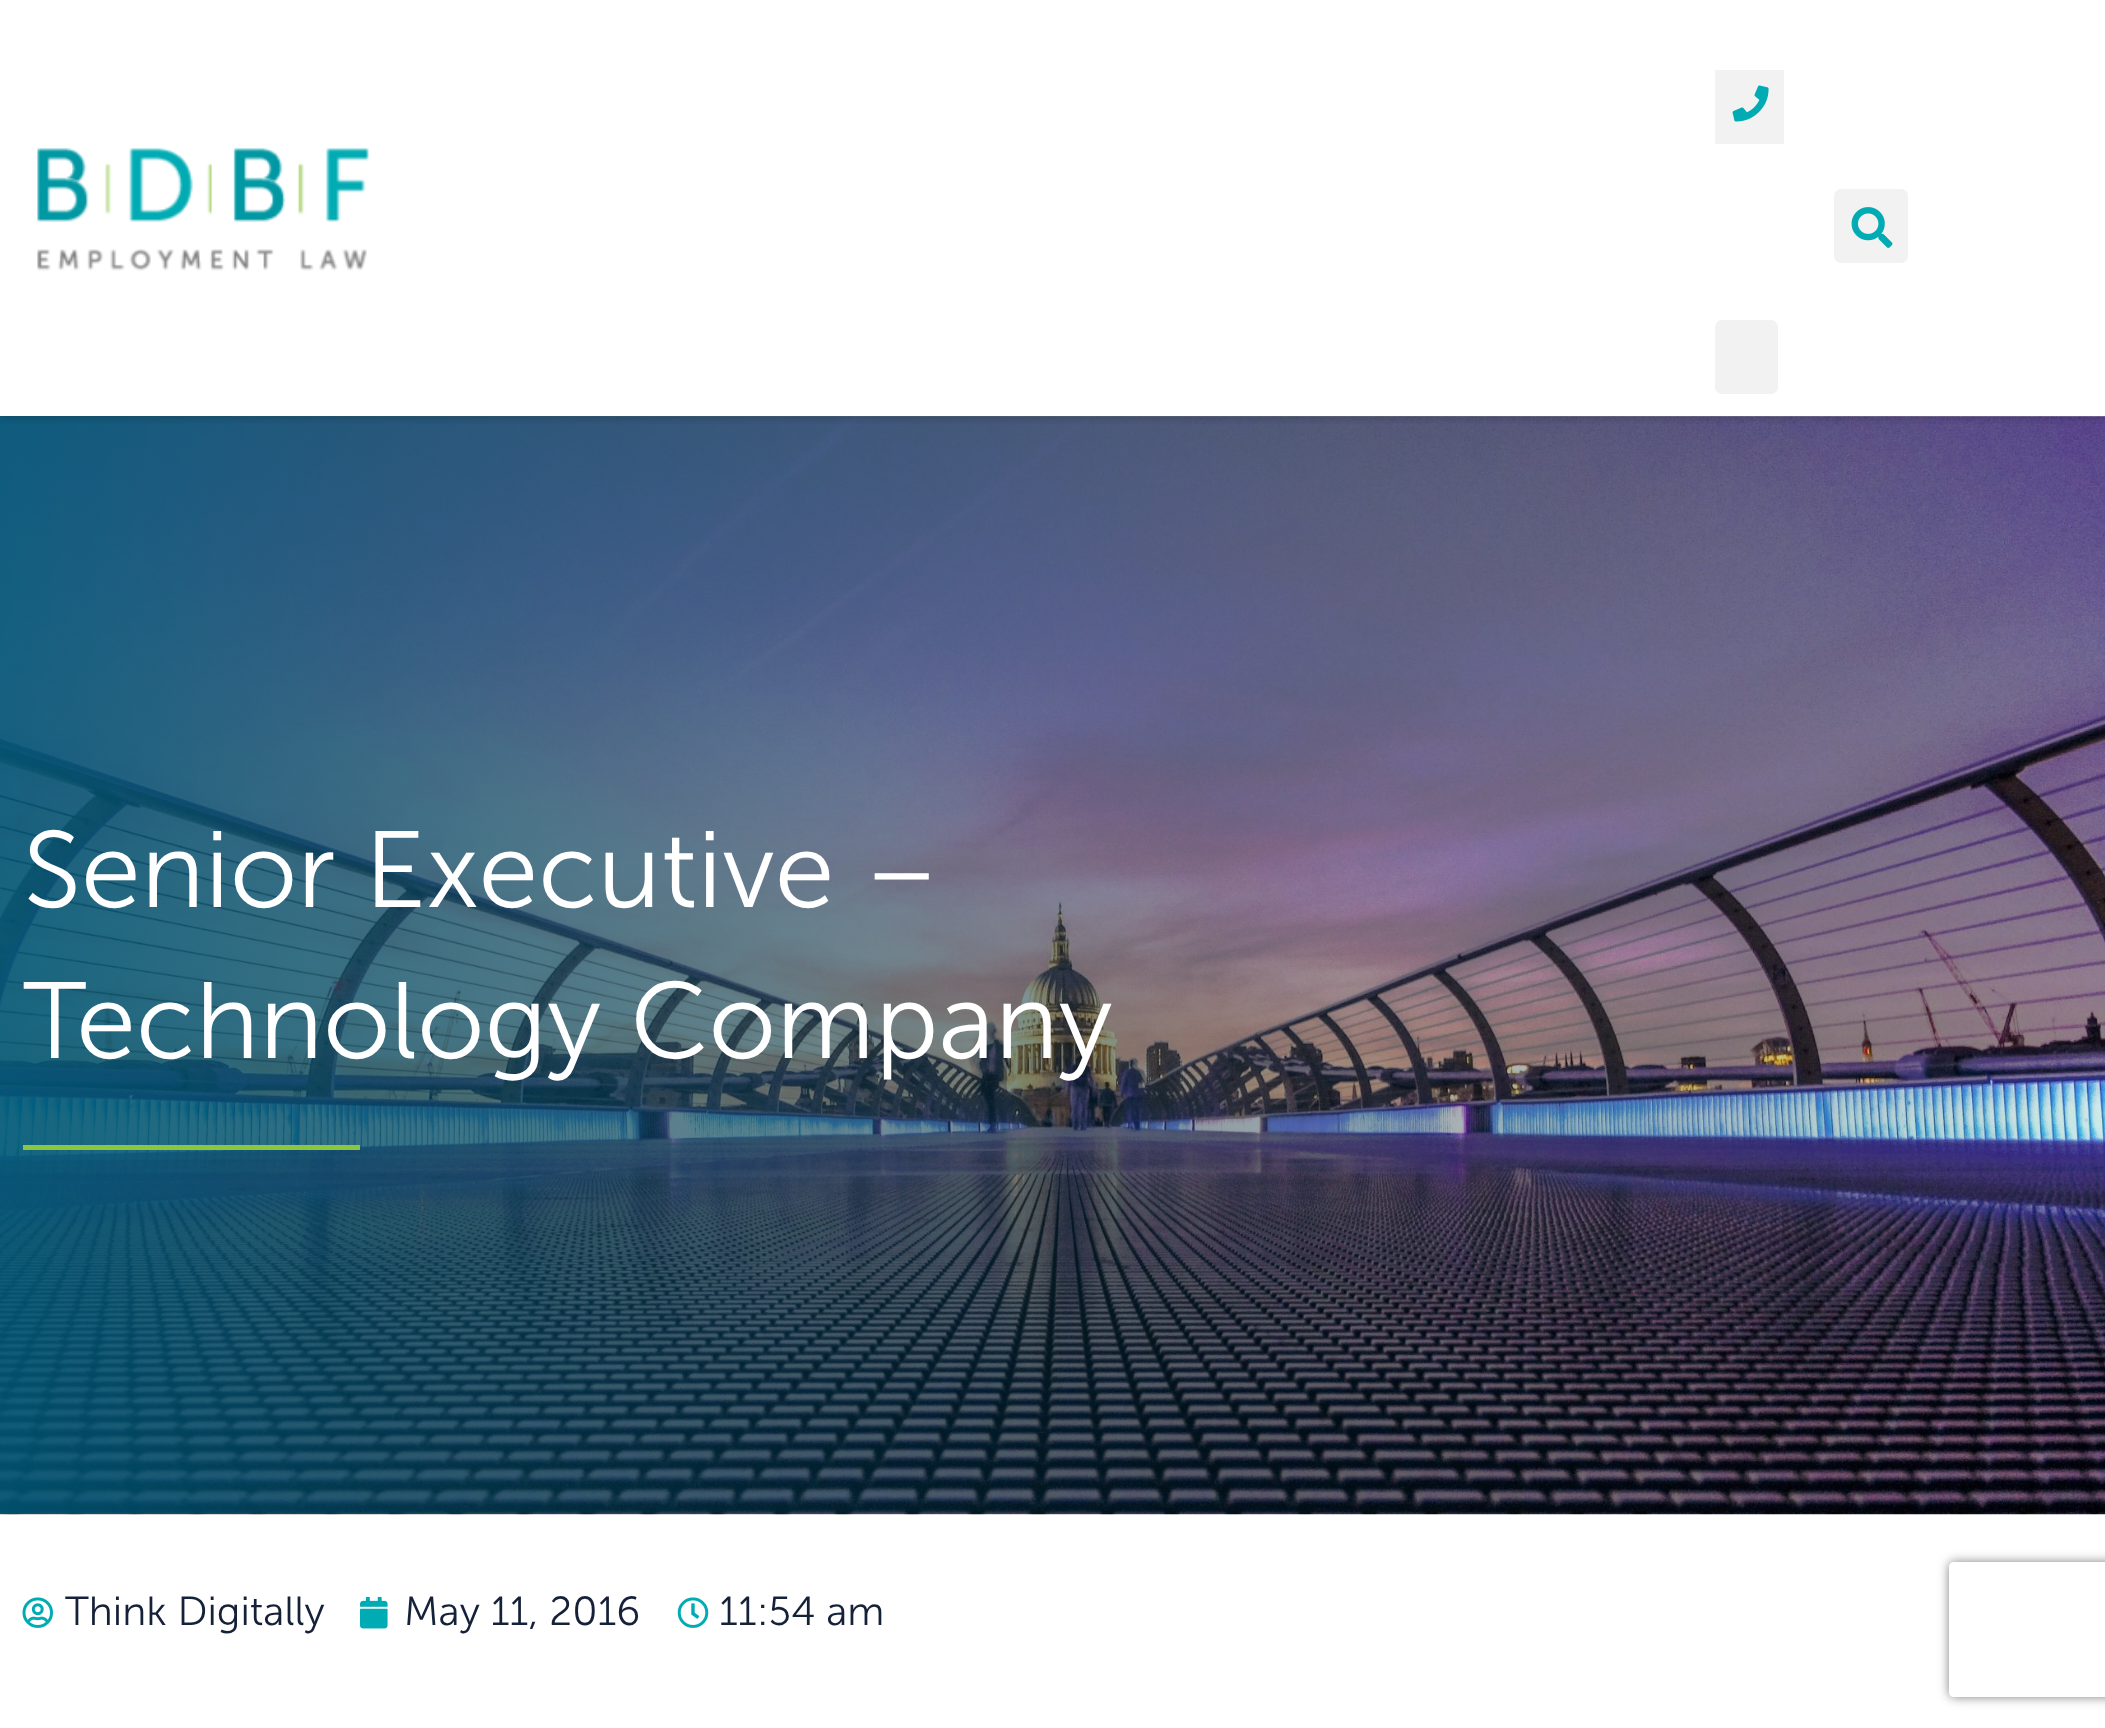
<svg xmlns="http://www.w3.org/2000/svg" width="2105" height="1728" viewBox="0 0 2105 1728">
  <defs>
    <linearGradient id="g1" gradientUnits="userSpaceOnUse" x1="0" y1="965" x2="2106" y2="965"><stop offset="0" stop-color="#005674" stop-opacity="0.91"/><stop offset="1" stop-color="#000" stop-opacity="0.08"/></linearGradient>
    <clipPath id="clip1"><path d="M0 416h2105v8H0z"/></clipPath>
    <clipPath id="clip2"><path d="M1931 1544H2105V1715H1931ZM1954 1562H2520C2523 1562 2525 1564 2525 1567V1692C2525 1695 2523 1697 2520 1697H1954C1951 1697 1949 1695 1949 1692V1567C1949 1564 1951 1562 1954 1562Z" clip-rule="evenodd"/></clipPath>
  </defs>
  <rect width="100%" height="100%" fill="#fff"/>
  <image x="0" y="416" width="2105" height="1099" href="img/4.png"/>
  <path d="M0 416h2105v1098H0z" fill="url(#g1)"/>
  <g clip-path="url(#clip1)">
    <path d="M0 0h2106v416H0z" fill="#00000040" filter="blur(5.5px)"/>
  </g>
  <image x="37" y="148" width="332" height="123" href="img/1.png"/>
  <path d="M1715 70h69v74H1715z" fill="#f2f2f2"/>
  <image x="1732" y="85" width="37" height="37" href="img/2.png"/>
  <rect x="1834" y="189" width="74" height="74" rx="7" fill="#f2f2f2"/>
  <image x="1851" y="207" width="42" height="41" href="img/3.png"/>
  <rect x="1715" y="320" width="63" height="74" rx="7" fill="#f2f2f2"/>
  <path d="M23 1145h337v5H23z" fill="#8cc63f"/>
  <image x="22" y="1597" width="31" height="31" href="img/5.png"/>
  <image x="360" y="1596" width="28" height="33" href="img/6.png"/>
  <image x="677" y="1597" width="32" height="31" href="img/7.png"/>
  <g clip-path="url(#clip2)">
    <rect x="1949" y="1562" width="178" height="135" rx="5" fill="#808080" filter="blur(5.5px)"/>
  </g>
  <g font-family="'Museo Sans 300'" font-size="108" font-weight="300" fill="#fff">
    <text x="23" y="907">Senior Executive –</text>
    <text x="23" y="1058">Technology Company</text>
  </g>
  <g font-family="'Museo Sans 300'" font-size="40.5" font-weight="300" fill="#152138">
    <text x="65" y="1625">Think Digitally</text>
    <text x="404" y="1625">May 11, 2016</text>
    <text x="719" y="1625">11:54 am</text>
  </g>
</svg>
